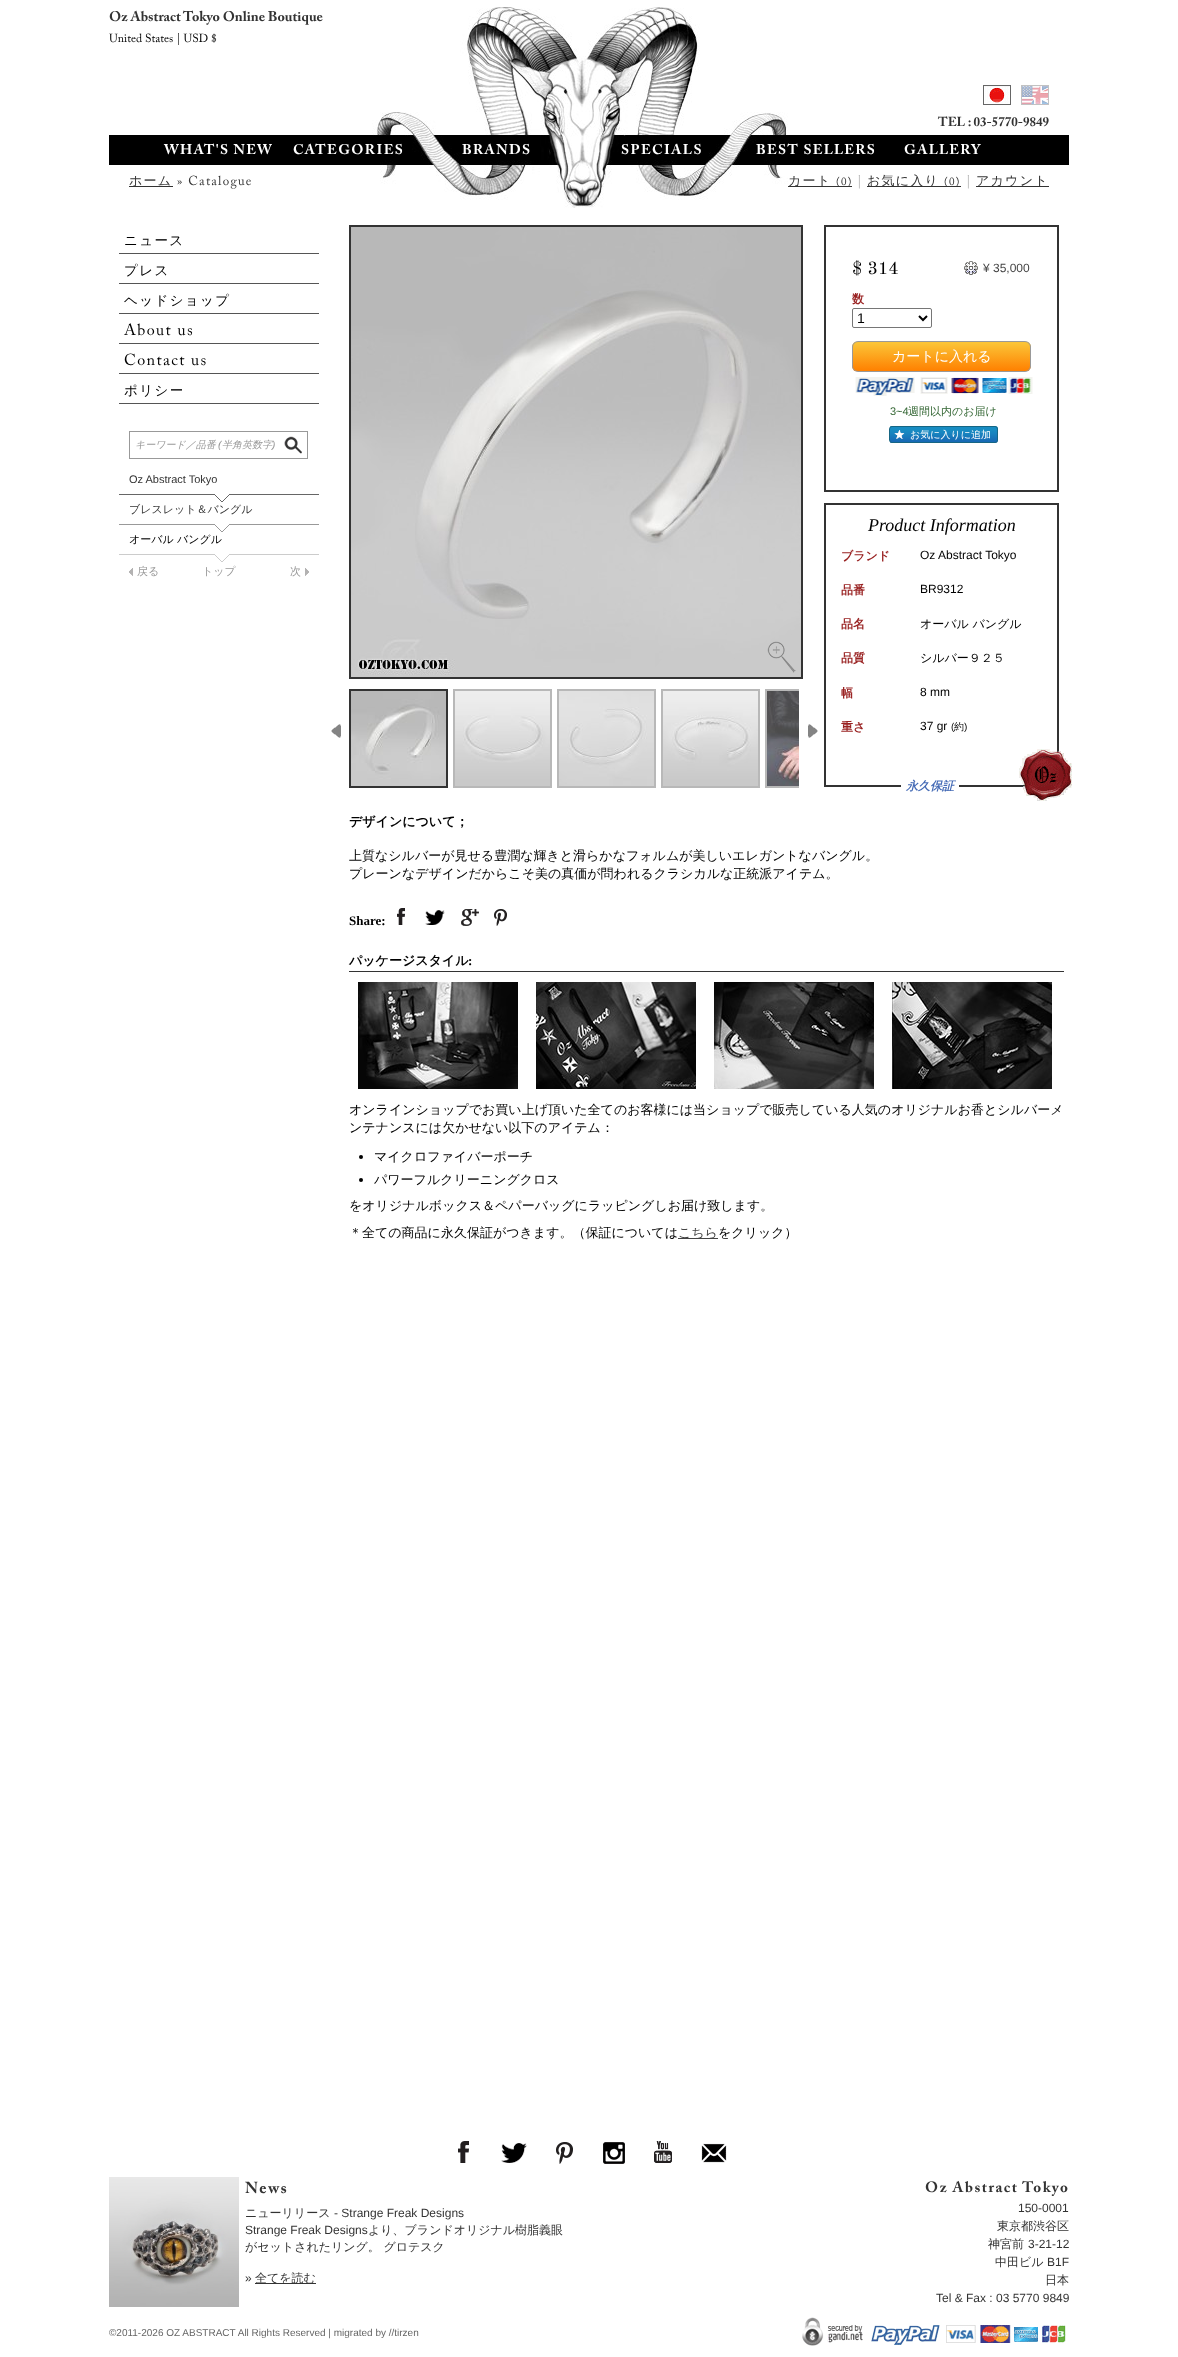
<svg xmlns="http://www.w3.org/2000/svg" width="1178" height="2357" viewBox="0 0 1178 2357">
  <defs>
    <clipPath id="clip1"><rect x="852" y="341" width="179" height="31" rx="6"/></clipPath>
    <linearGradient id="g1" gradientUnits="userSpaceOnUse" x1="853" y1="342" x2="853" y2="371"><stop offset="0.05" stop-color="#fbc336"/><stop offset="1" stop-color="#ff8000"/></linearGradient>
    <clipPath id="clip2"><path d="M349 689h450v99H349z"/></clipPath>
  </defs>
  <rect width="100%" height="100%" fill="#fff"/>
  <image x="109" y="7" width="960" height="201" href="img/1.png"/>
  <image x="983" y="85" width="28" height="20" href="img/2.png"/>
  <image x="1021" y="85" width="28" height="20" href="img/3.png"/>
  <path d="M129 186h44v1H129z" fill="#333"/>
  <path d="M788 186h64v1H788z" fill="#333"/>
  <path d="M867 186h94v1H867z" fill="#333"/>
  <path d="M976 186h73v1H976z" fill="#333"/>
  <path d="M119 253h200v1H119z" fill="#555"/>
  <path d="M119 283h200v1H119z" fill="#555"/>
  <path d="M119 313h200v1H119z" fill="#555"/>
  <path d="M119 343h200v1H119z" fill="#555"/>
  <path d="M119 373h200v1H119z" fill="#555"/>
  <path d="M119 403h200v1H119z" fill="#555"/>
  <image x="129" y="431" width="179" height="28" href="img/4.png"/>
  <image x="119" y="494" width="200" height="8" href="img/5.png"/>
  <image x="119" y="524" width="200" height="38" href="img/6.png"/>
  <image x="129" y="568" width="4" height="8" href="img/7.png"/>
  <image x="305" y="568" width="4" height="8" href="img/8.png"/>
  <path d="M350 226h452v452H350z" fill="none" stroke="#333" stroke-width="2"/>
  <image x="351" y="227" width="450" height="450" href="img/9.png"/>
  <image x="767" y="641" width="29" height="32" href="img/10.png"/>
  <image x="331" y="724" width="10" height="14" href="img/11.png"/>
  <path d="M350 690h97v97H350z" fill="none" stroke="#333" stroke-width="2"/>
  <image x="351" y="691" width="95" height="95" href="img/12.png"/>
  <path d="M454 690h97v97H454z" fill="none" stroke="#b8b8b8" stroke-width="2"/>
  <image x="455" y="691" width="95" height="95" href="img/13.png"/>
  <path d="M558 690h97v97H558z" fill="none" stroke="#b8b8b8" stroke-width="2"/>
  <image x="559" y="691" width="95" height="95" href="img/14.png"/>
  <path d="M662 690h97v97H662z" fill="none" stroke="#b8b8b8" stroke-width="2"/>
  <image x="663" y="691" width="95" height="95" href="img/15.png"/>
  <path d="M825 226h233v265H825z" fill="none" stroke="#333" stroke-width="2"/>
  <image x="964" y="261" width="14" height="14" href="img/18.png"/>
  <rect x="852.5" y="308.5" width="79" height="19" rx="1.5" fill="none" stroke="#767676"/>
  <path d="M919 316L923 320L927 316" fill="none" stroke="#000" stroke-width="2"/>
  <g clip-path="url(#clip1)">
    <path d="M852 342h179v29H852z" fill="url(#g1)"/>
  </g>
  <rect x="852.5" y="341.5" width="178" height="30" rx="5.5" fill="none" stroke="#999"/>
  <image x="855" y="377" width="178" height="19" href="img/19.png"/>
  <image x="890" y="426" width="108" height="17" href="img/20.png"/>
  <rect x="889.5" y="426.5" width="108" height="16" rx="2.5" fill="none" stroke="#176684"/>
  <path d="M825 504h233v282H825z" fill="none" stroke="#333" stroke-width="2"/>
  <path d="M901 785h58v2H901z" fill="#fff"/>
  <image x="1019" y="749" width="53" height="52" href="img/21.png"/>
  <image x="397" y="908" width="8" height="17" href="img/22.png"/>
  <image x="425" y="910" width="20" height="15" href="img/23.png"/>
  <image x="461" y="909" width="18" height="17" href="img/24.png"/>
  <image x="494" y="909" width="13" height="17" href="img/25.png"/>
  <path d="M349 971h715v1H349z" fill="#333"/>
  <image x="358" y="982" width="160" height="107" href="img/26.png"/>
  <image x="536" y="982" width="160" height="107" href="img/27.png"/>
  <image x="714" y="982" width="160" height="107" href="img/28.png"/>
  <image x="892" y="982" width="160" height="107" href="img/29.png"/>
  <circle cx="361" cy="1157" r="2" fill="#000"/>
  <circle cx="361" cy="1180" r="2" fill="#000"/>
  <path d="M678 1238h40v1H678z" fill="#444"/>
  <image x="458" y="2141" width="11" height="22" href="img/30.png"/>
  <image x="501" y="2143" width="26" height="20" href="img/31.png"/>
  <image x="556" y="2142" width="17" height="22" href="img/32.png"/>
  <image x="603" y="2142" width="22" height="22" href="img/33.png"/>
  <image x="654" y="2141" width="18" height="22" href="img/34.png"/>
  <image x="701" y="2143" width="26" height="20" href="img/35.png"/>
  <image x="109" y="2177" width="130" height="130" href="img/36.png"/>
  <path d="M255 2283h61v1H255z" fill="#333"/>
  <image x="802" y="2317" width="264" height="29" href="img/37.png"/>
  <text x="109" y="21" font-family="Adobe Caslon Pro" font-size="14" font-weight="bold" fill="#333">Oz Abstract Tokyo Online Boutique</text>
  <text x="109" y="42" font-family="Adobe Caslon Pro" font-size="11.75" fill="#000">United States | USD $</text>
  <text x="938" y="126" font-family="Adobe Caslon Pro" font-size="13" font-weight="bold" fill="#333">TEL : 03-5770-9849</text>
  <g font-family="Adobe Caslon Pro" font-size="14" font-weight="bold" letter-spacing="1.4" fill="#fff">
    <text x="164" y="154">WHAT'S NEW</text>
    <text x="293" y="154">CATEGORIES</text>
    <text x="462" y="154">BRANDS</text>
    <text x="621" y="154">SPECIALS</text>
    <text x="756" y="154">BEST SELLERS</text>
    <text x="904" y="154">GALLERY</text>
  </g>
  <text x="129" y="185" font-family="WenQuanYi Zen Hei" font-size="13" font-weight="500" letter-spacing="1.25" fill="#333">ホーム</text>
  <text x="177" y="185" font-family="Adobe Caslon Pro" font-size="13" letter-spacing="1.25" fill="#333">» Catalogue</text>
  <text x="788" y="185" font-family="WenQuanYi Zen Hei" font-size="13" font-weight="500" letter-spacing="1.25" fill="#333">カート</text>
  <text x="836" y="185" font-family="Adobe Caslon Pro" font-size="11" letter-spacing="1.25" fill="#333">(0)</text>
  <text x="857" y="185" font-family="Adobe Caslon Pro" font-size="13" letter-spacing="1.25" fill="#aaa">|</text>
  <text x="867" y="185" font-family="WenQuanYi Zen Hei" font-size="13" font-weight="500" letter-spacing="1.25" fill="#333">お気に入り</text>
  <text x="944" y="185" font-family="Adobe Caslon Pro" font-size="11" letter-spacing="1.25" fill="#333">(0)</text>
  <text x="966" y="185" font-family="Adobe Caslon Pro" font-size="13" letter-spacing="1.25" fill="#aaa">|</text>
  <text x="976" y="185" font-family="WenQuanYi Zen Hei" font-size="13" font-weight="500" letter-spacing="1.25" fill="#333">アカウント</text>
  <g font-family="WenQuanYi Zen Hei" font-size="13.5" font-weight="500" letter-spacing="1.4" fill="#000">
    <text x="124" y="245">ニュース</text>
    <text x="124" y="275">プレス</text>
    <text x="124" y="305">ヘッドショップ</text>
  </g>
  <g font-family="Adobe Caslon Pro" font-size="16" letter-spacing="1.4" fill="#000">
    <text x="124" y="335">About us</text>
    <text x="124" y="365">Contact us</text>
  </g>
  <text x="124" y="395" font-family="WenQuanYi Zen Hei" font-size="13.5" font-weight="500" letter-spacing="1.4" fill="#000">ポリシー</text>
  <text x="135" y="448" font-family="WenQuanYi Zen Hei" font-size="10" font-weight="500" font-style="italic" fill="#999">キーワード／品番</text>
  <text x="218" y="448" font-family="Liberation Sans" font-size="10" font-style="italic" fill="#999">(</text>
  <text x="222" y="448" font-family="WenQuanYi Zen Hei" font-size="10" font-weight="500" font-style="italic" fill="#999">半角英数字</text>
  <text x="272" y="448" font-family="Liberation Sans" font-size="10" font-style="italic" fill="#999">)</text>
  <text x="129" y="483" font-family="Liberation Sans" font-size="11" fill="#333">Oz Abstract Tokyo</text>
  <text x="129" y="513" font-family="WenQuanYi Zen Hei" font-size="11" font-weight="500" fill="#333">ブレスレット＆バングル</text>
  <text x="129" y="543" font-family="WenQuanYi Zen Hei" font-size="11" font-weight="500" fill="#000">オーバル バングル</text>
  <g font-family="WenQuanYi Zen Hei" font-size="11" font-weight="500" fill="#999">
    <text x="137" y="575">戻る</text>
    <text x="202" y="575">トップ</text>
    <text x="290" y="575">次</text>
  </g>
  <text x="852" y="274" font-family="Old Standard TT" font-size="18" fill="#000">$ 314</text>
  <text x="983" y="272" font-family="Liberation Sans" font-size="12" fill="#444">¥ 35,000</text>
  <text x="852" y="303" font-family="WenQuanYi Zen Hei" font-size="12" font-weight="bold" fill="#922">数</text>
  <text x="857" y="323" font-family="Liberation Sans" font-size="14" fill="#000">1</text>
  <text x="892" y="361" font-family="WenQuanYi Zen Hei" font-size="14" font-weight="500" fill="#fff">カートに入れる</text>
  <text x="890" y="415" font-family="Liberation Sans" font-size="11" fill="#363">3~4</text>
  <text x="908" y="415" font-family="WenQuanYi Zen Hei" font-size="11" font-weight="500" fill="#363">週間以内のお届け</text>
  <text x="910" y="438" font-family="WenQuanYi Zen Hei" font-size="10" font-weight="500" fill="#fff">お気に入りに追加</text>
  <text x="868" y="531" font-family="Liberation Serif" font-size="18" font-style="italic" fill="#000">Product Information</text>
  <text x="841" y="560" font-family="WenQuanYi Zen Hei" font-size="12" font-weight="bold" fill="#922">ブランド</text>
  <text x="920" y="559" font-family="Liberation Sans" font-size="12" fill="#000">Oz Abstract Tokyo</text>
  <text x="841" y="594" font-family="WenQuanYi Zen Hei" font-size="12" font-weight="bold" fill="#922">品番</text>
  <text x="920" y="593" font-family="Liberation Sans" font-size="12" fill="#000">BR9312</text>
  <text x="841" y="628" font-family="WenQuanYi Zen Hei" font-size="12" font-weight="bold" fill="#922">品名</text>
  <text x="920" y="628" font-family="WenQuanYi Zen Hei" font-size="12" font-weight="500" fill="#000">オーバル バングル</text>
  <text x="841" y="662" font-family="WenQuanYi Zen Hei" font-size="12" font-weight="bold" fill="#922">品質</text>
  <text x="920" y="662" font-family="WenQuanYi Zen Hei" font-size="12" font-weight="500" fill="#000">シルバー９２５</text>
  <text x="841" y="697" font-family="WenQuanYi Zen Hei" font-size="12" font-weight="bold" fill="#922">幅</text>
  <text x="920" y="696" font-family="Liberation Sans" font-size="12" fill="#000">8 mm</text>
  <text x="841" y="731" font-family="WenQuanYi Zen Hei" font-size="12" font-weight="bold" fill="#922">重さ</text>
  <g clip-path="url(#clip2)">
    <path d="M766 690h97v97H766z" fill="none" stroke="#b8b8b8" stroke-width="2"/>
  </g>
  <image x="808" y="724" width="10" height="14" href="img/17.png"/>
  <image x="767" y="691" width="32" height="95" href="img/16.png"/>
  <text x="920" y="730" font-family="Liberation Sans" font-size="12" fill="#000">37 gr</text>
  <text x="951" y="730" font-family="Liberation Sans" font-size="10" fill="#000">(</text>
  <text x="954" y="730" font-family="WenQuanYi Zen Hei" font-size="10" font-weight="500" fill="#000">約</text>
  <text x="964" y="730" font-family="Liberation Sans" font-size="10" fill="#000">)</text>
  <text x="906" y="790" font-family="WenQuanYi Zen Hei" font-size="12" font-weight="bold" font-style="italic" fill="#446ab5">永久保証</text>
  <text x="349" y="826" font-family="WenQuanYi Zen Hei" font-size="13" font-weight="bold" fill="#000">デザインについて；</text>
  <g font-family="WenQuanYi Zen Hei" font-size="13" font-weight="500" fill="#000">
    <text x="349" y="860">上質なシルバーが見せる豊潤な輝きと滑らかなフォルムが美しいエレガントなバングル。</text>
    <text x="349" y="878">プレーンなデザインだからこそ美の真価が問われるクラシカルな正統派アイテム。</text>
  </g>
  <text x="349" y="925" font-family="Liberation Serif" font-size="13" font-weight="bold" fill="#000">Share:</text>
  <text x="349" y="965" font-family="WenQuanYi Zen Hei" font-size="13" font-weight="bold" fill="#000">パッケージスタイル</text>
  <text x="468" y="965" font-family="Liberation Serif" font-size="13" font-weight="bold" fill="#000">:</text>
  <g font-family="WenQuanYi Zen Hei" font-size="13" font-weight="500" fill="#000">
    <text x="349" y="1114">オンラインショップでお買い上げ頂いた全てのお客様には当ショップで販売している人気のオリジナルお香とシルバーメ</text>
    <text x="349" y="1132">ンテナンスには欠かせない以下のアイテム：</text>
    <text x="374" y="1161">マイクロファイバーポーチ</text>
    <text x="374" y="1184">パワーフルクリーニングクロス</text>
    <text x="349" y="1210">をオリジナルボックス＆ペパーバッグにラッピングしお届け致します。</text>
    <text x="349" y="1237">＊全ての商品に永久保証がつきます。（保証については</text>
  </g>
  <text x="678" y="1237" font-family="WenQuanYi Zen Hei" font-size="13" font-weight="500" fill="#444">こちら</text>
  <text x="718" y="1237" font-family="WenQuanYi Zen Hei" font-size="13" font-weight="500" fill="#000">をクリック）</text>
  <text x="245" y="2193" font-family="Adobe Caslon Pro" font-size="16" font-weight="bold" letter-spacing="1.5" fill="#333">News</text>
  <text x="245" y="2217" font-family="WenQuanYi Zen Hei" font-size="12" font-weight="500" fill="#333">ニューリリース</text>
  <g font-family="Liberation Sans" font-size="12" fill="#333">
    <text x="334" y="2217">- Strange Freak Designs</text>
    <text x="245" y="2234">Strange Freak Designs</text>
  </g>
  <g font-family="WenQuanYi Zen Hei" font-size="12" font-weight="500" fill="#333">
    <text x="368" y="2234">より、ブランドオリジナル樹脂義眼</text>
    <text x="245" y="2251">がセットされたリング。 グロテスク</text>
  </g>
  <text x="245" y="2282" font-family="Liberation Sans" font-size="12" fill="#333">»</text>
  <text x="255" y="2282" font-family="WenQuanYi Zen Hei" font-size="12" font-weight="500" fill="#333">全てを読む</text>
  <text x="925" y="2192" font-family="Adobe Caslon Pro" font-size="15" font-weight="bold" letter-spacing="1.5" fill="#333">Oz Abstract Tokyo</text>
  <text x="1018" y="2212" font-family="Liberation Sans" font-size="12" fill="#333">150-0001</text>
  <g font-family="WenQuanYi Zen Hei" font-size="12" font-weight="500" fill="#333">
    <text x="997" y="2230">東京都渋谷区</text>
    <text x="988" y="2248">神宮前</text>
  </g>
  <text x="1028" y="2248" font-family="Liberation Sans" font-size="12" fill="#333">3-21-12</text>
  <text x="995" y="2266" font-family="WenQuanYi Zen Hei" font-size="12" font-weight="500" fill="#333">中田ビル</text>
  <text x="1047" y="2266" font-family="Liberation Sans" font-size="12" fill="#333">B1F</text>
  <text x="1045" y="2284" font-family="WenQuanYi Zen Hei" font-size="12" font-weight="500" fill="#333">日本</text>
  <text x="936" y="2302" font-family="Liberation Sans" font-size="12" fill="#333">Tel &amp; Fax : 03 5770 9849</text>
  <text x="109" y="2336" font-family="Liberation Sans" font-size="10" fill="#666">©2011-2026 OZ ABSTRACT All Rights Reserved | migrated by //tirzen</text>
</svg>
